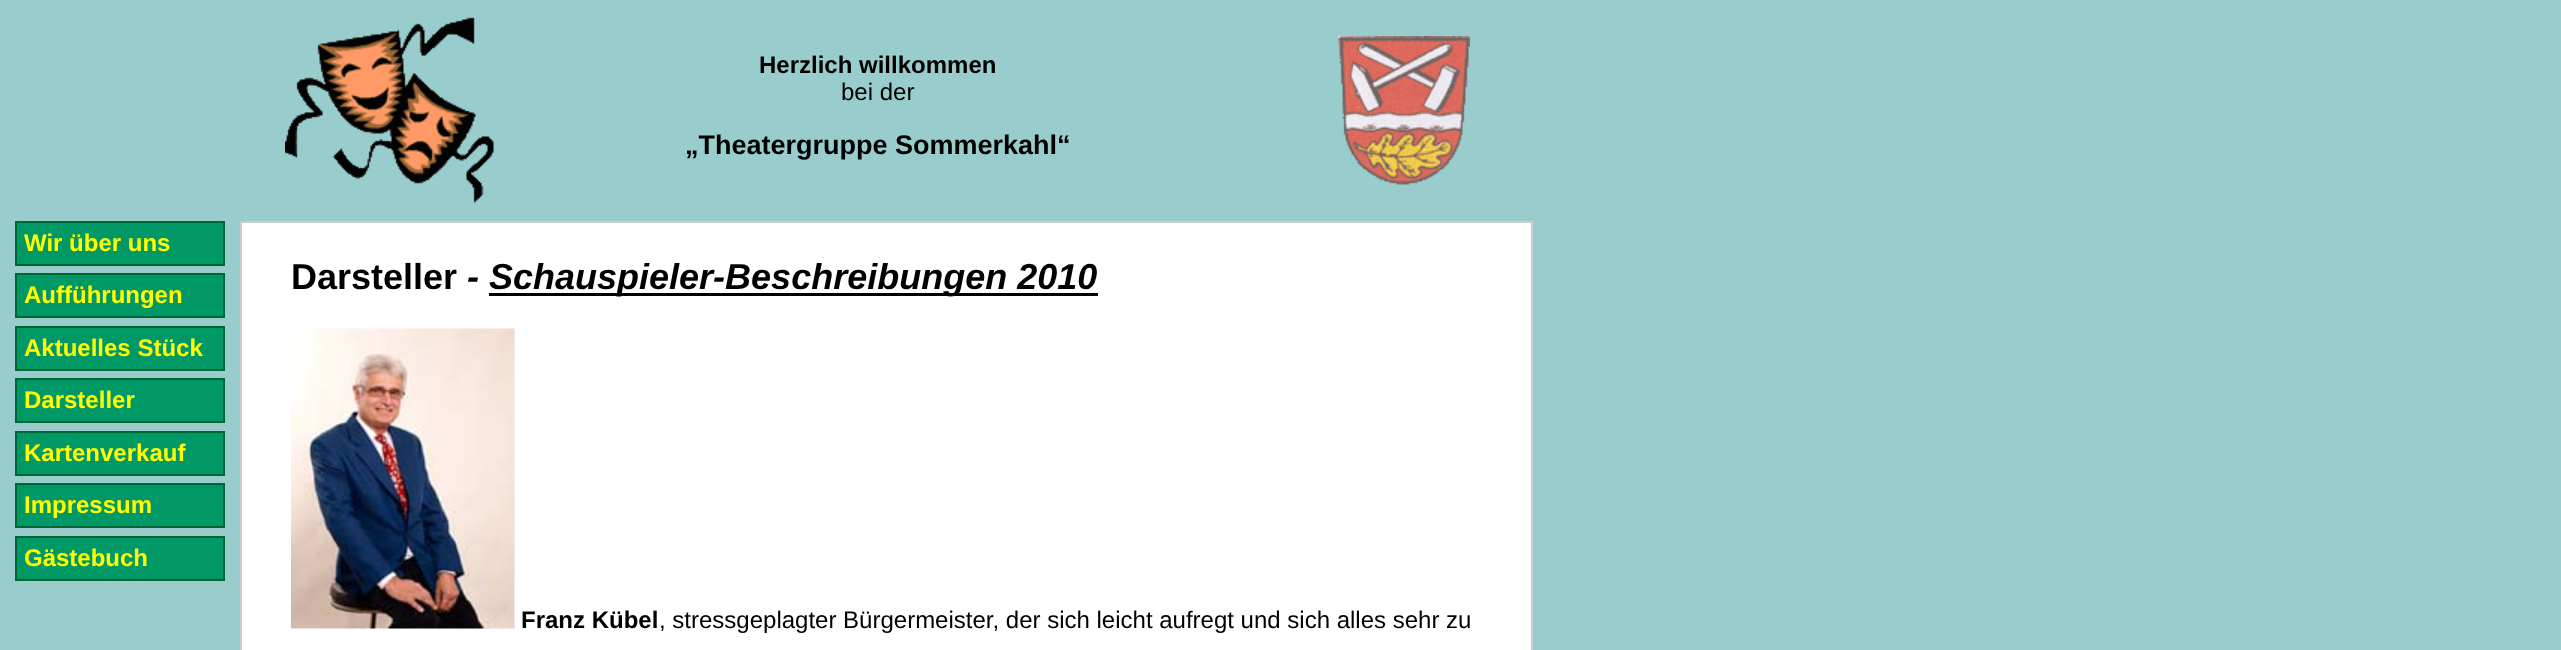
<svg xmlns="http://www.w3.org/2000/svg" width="2561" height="650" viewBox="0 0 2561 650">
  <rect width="100%" height="100%" fill="#9cc"/>
  <image x="285" y="17" width="209" height="186" href="img/1.png"/>
  <image x="1338" y="36" width="132" height="149" href="img/2.png"/>
  <path d="M16 222h208v43H16z" fill="#096" stroke="#063" stroke-width="2"/>
  <path d="M16 274h208v43H16z" fill="#096" stroke="#063" stroke-width="2"/>
  <path d="M16 327h208v43H16z" fill="#096" stroke="#063" stroke-width="2"/>
  <path d="M16 379h208v43H16z" fill="#096" stroke="#063" stroke-width="2"/>
  <path d="M16 432h208v43H16z" fill="#096" stroke="#063" stroke-width="2"/>
  <path d="M16 484h208v43H16z" fill="#096" stroke="#063" stroke-width="2"/>
  <path d="M16 537h208v43H16z" fill="#096" stroke="#063" stroke-width="2"/>
  <path d="M241 222h1291v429H241z" fill="#fff" stroke="#ccc" stroke-width="2"/>
  <path d="M489 293h609v3H489z" fill="#000"/>
  <image x="291" y="328" width="224" height="301" href="img/3.png"/>
  <text x="759" y="73" font-family="Liberation Sans" font-size="24" font-weight="bold" fill="#000">Herzlich willkommen</text>
  <text x="841" y="100" font-family="Liberation Sans" font-size="24" fill="#000">bei der</text>
  <text x="685" y="154" font-family="Liberation Sans" font-size="27" font-weight="bold" fill="#000">„Theatergruppe Sommerkahl“</text>
  <g font-family="Liberation Sans" font-size="24" font-weight="bold" fill="#ff0">
    <text x="24" y="251">Wir über uns</text>
    <text x="24" y="303">Aufführungen</text>
    <text x="24" y="356">Aktuelles Stück</text>
    <text x="24" y="408">Darsteller</text>
    <text x="24" y="461">Kartenverkauf</text>
    <text x="24" y="513">Impressum</text>
    <text x="24" y="566">Gästebuch</text>
  </g>
  <text x="291" y="289" font-family="Liberation Sans" font-size="36" font-weight="bold" fill="#000">Darsteller</text>
  <g font-family="Liberation Sans" font-size="36" font-weight="bold" font-style="italic" fill="#000">
    <text x="467" y="289">-</text>
    <text x="489" y="289">Schauspieler-Beschreibungen 2010</text>
  </g>
  <text x="521" y="628" font-family="Liberation Sans" font-size="24" font-weight="bold" fill="#000">Franz Kübel</text>
  <text x="659" y="628" font-family="Liberation Sans" font-size="24" fill="#000">, stressgeplagter Bürgermeister, der sich leicht aufregt und sich alles sehr zu</text>
</svg>
